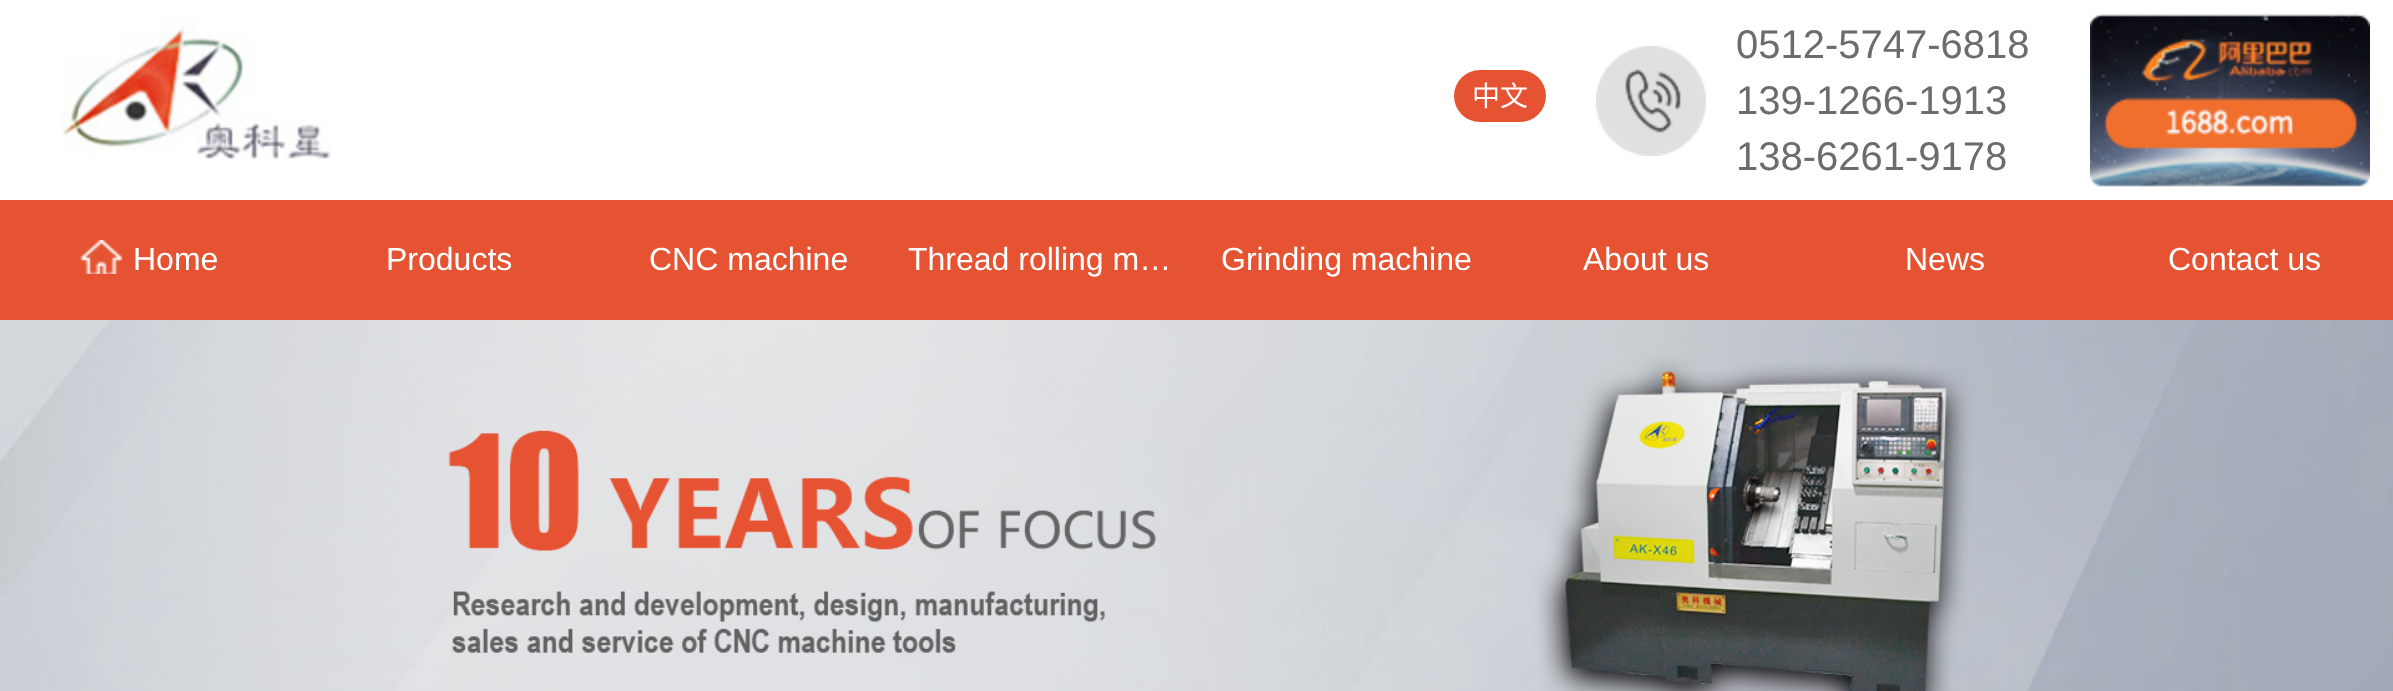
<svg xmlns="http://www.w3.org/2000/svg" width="2393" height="691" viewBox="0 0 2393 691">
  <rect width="100%" height="100%" fill="#fff"/>
  <image x="62" y="16" width="269" height="144" href="img/1.png"/>
  <rect x="1454" y="70" width="92" height="52" rx="26" fill="#e55332"/>
  <image x="1596" y="46" width="110" height="110" href="img/2.png"/>
  <image x="2090" y="13" width="280" height="174" href="img/3.png"/>
  <path d="M0 200h2393v120H0z" fill="#e55332"/>
  <image x="80" y="240" width="42" height="34" href="img/4.png"/>
  <image x="0" y="320" width="2393" height="371" href="img/5.png"/>
  <text x="1472" y="106" font-family="Noto Sans CJK SC" font-size="28" fill="#fff">中文</text>
  <g font-family="Liberation Sans" font-size="40" fill="#6c6c6c">
    <text x="1736" y="58">0512-5747-6818</text>
    <text x="1736" y="114">139-1266-1913</text>
    <text x="1736" y="170">138-6261-9178</text>
  </g>
  <g font-family="Liberation Sans" font-size="32" fill="#fff">
    <text x="133" y="270">Home</text>
    <text x="386" y="270">Products</text>
    <text x="649" y="270">CNC machine</text>
    <text x="908" y="270">Thread rolling m…</text>
    <text x="1221" y="270">Grinding machine</text>
    <text x="1583" y="270">About us</text>
    <text x="1905" y="270">News</text>
    <text x="2168" y="270">Contact us</text>
  </g>
</svg>
